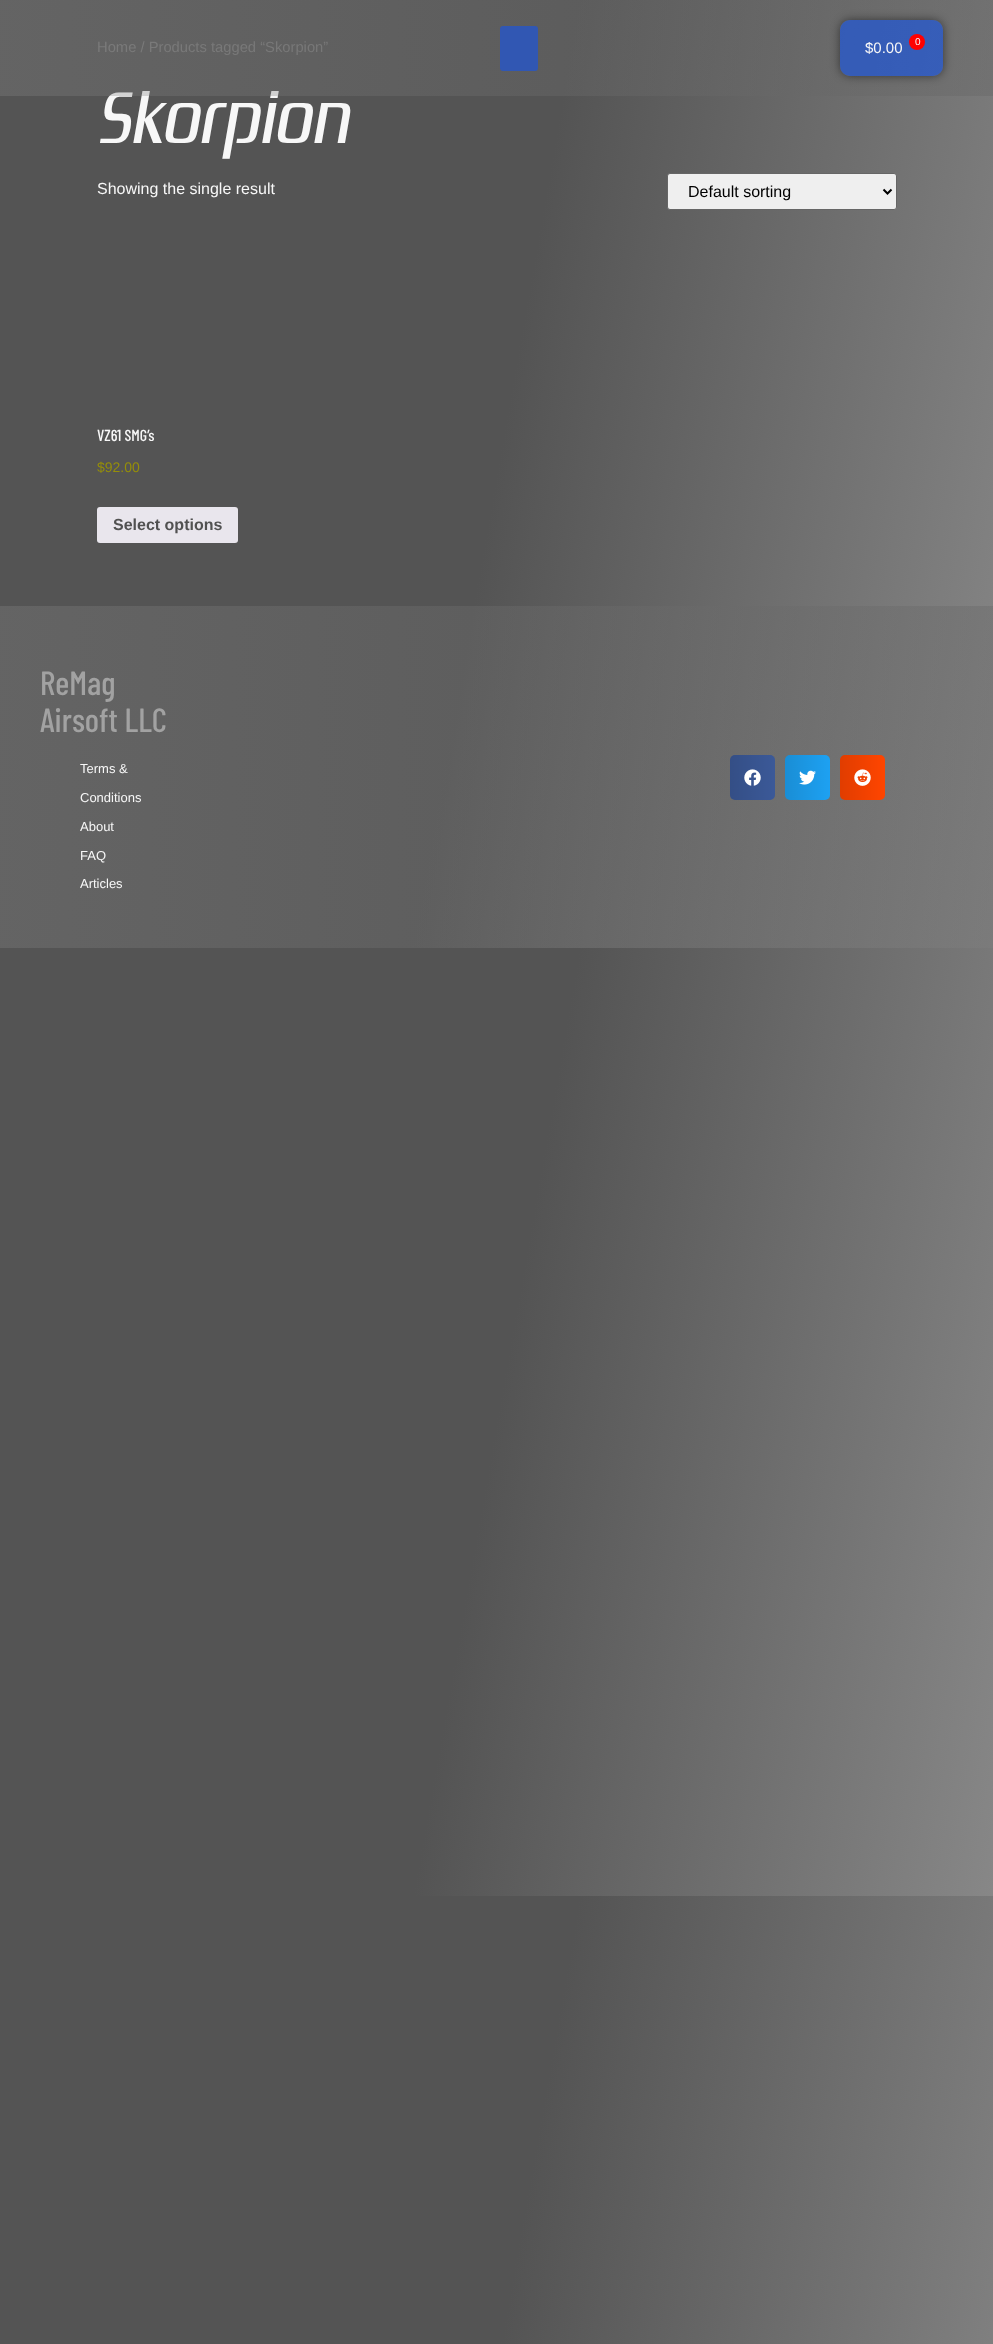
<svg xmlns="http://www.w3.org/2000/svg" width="993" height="2344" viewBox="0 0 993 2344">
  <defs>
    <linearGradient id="g1" gradientUnits="userSpaceOnUse" x1="-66" y1="375" x2="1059" y2="573"><stop offset="0.5" stop-color="#545454"/><stop offset="1" stop-color="#878787"/></linearGradient>
    <linearGradient id="g2" gradientUnits="userSpaceOnUse" x1="-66" y1="1323" x2="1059" y2="1521"><stop offset="0.5" stop-color="#545454"/><stop offset="1" stop-color="#878787"/></linearGradient>
    <linearGradient id="g3" gradientUnits="userSpaceOnUse" x1="-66" y1="2271" x2="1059" y2="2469"><stop offset="0.5" stop-color="#545454"/><stop offset="1" stop-color="#878787"/></linearGradient>
    <linearGradient id="g4" gradientUnits="userSpaceOnUse" x1="993" y1="777" x2="0" y2="777"><stop offset="0" stop-color="#606060" stop-opacity="0.31"/><stop offset="1" stop-color="#878787" stop-opacity="0.31"/></linearGradient>
    <linearGradient id="g5" gradientUnits="userSpaceOnUse" x1="730" y1="778" x2="775" y2="778"><stop offset="0" stop-color="#000" stop-opacity="0.12"/><stop offset="1" stop-color="#000" stop-opacity="0"/></linearGradient>
    <linearGradient id="g6" gradientUnits="userSpaceOnUse" x1="785" y1="778" x2="830" y2="778"><stop offset="0" stop-color="#000" stop-opacity="0.12"/><stop offset="1" stop-color="#000" stop-opacity="0"/></linearGradient>
    <linearGradient id="g7" gradientUnits="userSpaceOnUse" x1="840" y1="778" x2="885" y2="778"><stop offset="0" stop-color="#000" stop-opacity="0.12"/><stop offset="1" stop-color="#000" stop-opacity="0"/></linearGradient>
    <linearGradient id="g8" gradientUnits="userSpaceOnUse" x1="993" y1="48" x2="0" y2="48"><stop offset="0" stop-color="#606060" stop-opacity="0.31"/><stop offset="1" stop-color="#878787" stop-opacity="0.31"/></linearGradient>
    <clipPath id="clip1"><path d="M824 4H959V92H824ZM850 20H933C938.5 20 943 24.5 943 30V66C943 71.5 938.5 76 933 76H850C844.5 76 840 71.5 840 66V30C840 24.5 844.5 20 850 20Z" clip-rule="evenodd"/></clipPath>
  </defs>
  <rect width="100%" height="100%" fill="#fff"/>
  <path d="M0 0h993v948H0z" fill="url(#g1)"/>
  <path d="M0 948h993v948H0z" fill="url(#g2)"/>
  <path d="M0 1896h993v448H0z" fill="url(#g3)"/>
  <rect x="667.5" y="173.5" width="229" height="36" rx="2.5" fill="#efefef" stroke="#666"/>
  <path d="M883.5 189.5L887.5 193.5L891.5 189.5" fill="none" stroke="#000" stroke-width="2"/>
  <rect x="97" y="507" width="141" height="36" rx="3" fill="#e9e6ed"/>
  <path d="M0 606h993v342H0z" fill="url(#g4)"/>
  <rect x="730" y="755" width="45" height="45" rx="5" fill="#3b5998"/>
  <rect x="730" y="755" width="45" height="45" rx="5" fill="url(#g5)"/>
  <image x="744" y="769" width="17" height="17" href="img/1.png"/>
  <rect x="785" y="755" width="45" height="45" rx="5" fill="#1da1f2"/>
  <rect x="785" y="755" width="45" height="45" rx="5" fill="url(#g6)"/>
  <image x="799" y="770" width="17" height="15" href="img/2.png"/>
  <rect x="840" y="755" width="45" height="45" rx="5" fill="#ff4500"/>
  <rect x="840" y="755" width="45" height="45" rx="5" fill="url(#g7)"/>
  <image x="854" y="769" width="17" height="17" href="img/3.png"/>
  <text x="97" y="52" font-family="Liberation Sans" font-size="14.75" fill="#767676">Home / Products tagged “Skorpion”</text>
  <text x="97" y="143" font-family="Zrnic" font-size="72" font-style="italic" fill="#f7f7f7">Skorpion</text>
  <text x="97" y="194" font-family="Liberation Sans" font-size="16" fill="#f7f7f7">Showing the single result</text>
  <text x="688" y="197" font-family="Liberation Sans" font-size="16" fill="#000">Default sorting</text>
  <text x="97" y="441" font-family="Barlow Condensed" font-size="16" font-weight="500" fill="#f7f7f7">VZ61 SMG’s</text>
  <text x="97" y="472" font-family="Liberation Sans" font-size="14" fill="#958e09">$92.00</text>
  <text x="113" y="530" font-family="Liberation Sans" font-size="16" font-weight="bold" fill="#515151">Select options</text>
  <path d="M0 0h993v96H0z" fill="url(#g8)"/>
  <rect x="500" y="26" width="38" height="45" rx="3" fill="#3157b3"/>
  <g clip-path="url(#clip1)">
    <rect x="840" y="20" width="103" height="56" rx="10" fill="#00000080" filter="blur(5px)"/>
  </g>
  <rect x="840" y="20" width="103" height="56" rx="10" fill="#1954e1a6"/>
  <text x="865" y="53" font-family="Liberation Sans" font-size="15" fill="#f7f7f7">$0.00</text>
  <circle cx="917" cy="42" r="8" fill="#f00"/>
  <text x="915" y="45" font-family="Liberation Sans" font-size="10" fill="#f7f7f7">0</text>
  <g font-family="Barlow Condensed" font-size="33.5" font-weight="500" fill="#a2a2a2">
    <text x="40" y="695">ReMag</text>
    <text x="40" y="732">Airsoft LLC</text>
  </g>
  <g font-family="Liberation Sans" font-size="13" fill="#f7f7f7">
    <text x="80" y="773">Terms &amp;</text>
    <text x="80" y="802">Conditions</text>
    <text x="80" y="831">About</text>
    <text x="80" y="860">FAQ</text>
    <text x="80" y="888">Articles</text>
  </g>
</svg>
